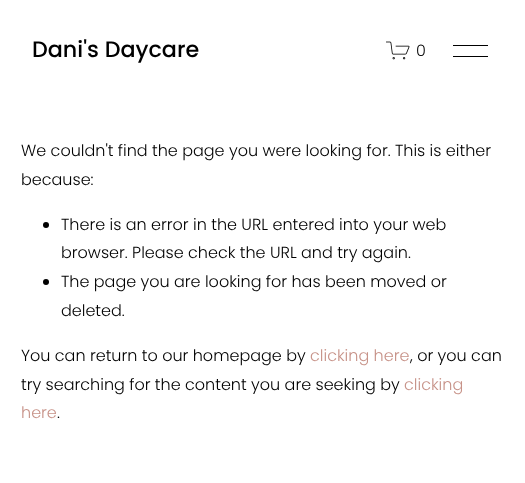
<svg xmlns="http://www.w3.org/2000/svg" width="525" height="483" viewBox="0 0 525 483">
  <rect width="100%" height="100%" fill="#fff"/>
  <image x="386" y="41" width="24" height="19" href="img/1.png"/>
  <path d="M453 45h35v1H453z" fill="#000"/>
  <path d="M453 56h35v1H453z" fill="#000"/>
  <circle cx="46" cy="225" r="3" fill="#000"/>
  <circle cx="46" cy="282" r="3" fill="#000"/>
  <text x="32" y="57" font-family="Poppins" font-size="22.25" font-weight="500" fill="#000">Dani's Daycare</text>
  <g font-family="Poppins" font-size="16" font-weight="300" fill="#000">
    <text x="416" y="56">0</text>
    <text x="21" y="156">We couldn't find the page you were looking for. This is either</text>
    <text x="21" y="185">because:</text>
    <text x="61" y="230">There is an error in the URL entered into your web</text>
    <text x="61" y="258">browser. Please check the URL and try again.</text>
    <text x="61" y="287">The page you are looking for has been moved or</text>
    <text x="61" y="316">deleted.</text>
    <text x="21" y="361">You can return to our homepage by</text>
  </g>
  <text x="310" y="361" font-family="Poppins" font-size="16" font-weight="300" fill="#c79288">clicking here</text>
  <g font-family="Poppins" font-size="16" font-weight="300" fill="#000">
    <text x="410" y="361">, or you can</text>
    <text x="21" y="390">try searching for the content you are seeking by</text>
  </g>
  <g font-family="Poppins" font-size="16" font-weight="300" fill="#c79288">
    <text x="404" y="390">clicking</text>
    <text x="21" y="418">here</text>
  </g>
  <text x="57" y="418" font-family="Poppins" font-size="16" font-weight="300" fill="#000">.</text>
</svg>
